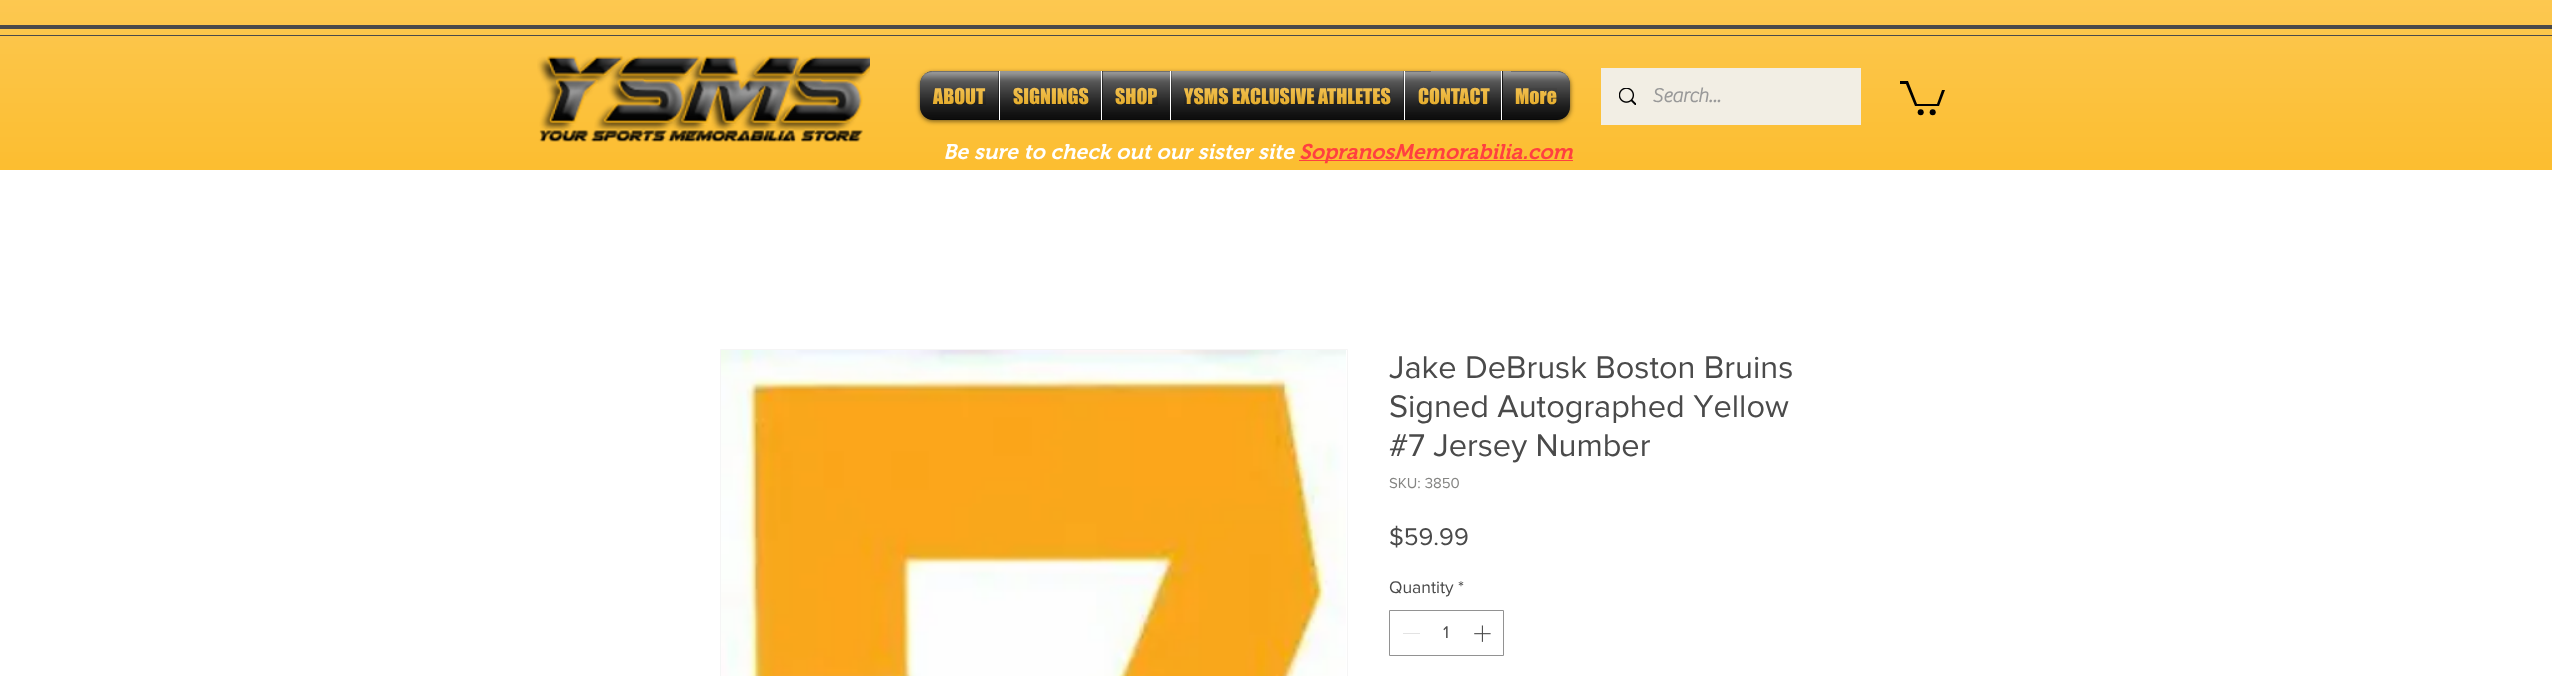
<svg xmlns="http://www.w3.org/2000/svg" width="2552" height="676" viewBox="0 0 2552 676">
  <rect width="100%" height="100%" fill="#fff"/>
  <path d="M0 0h2552v170H0z" fill="#fcb514"/>
  <image x="0" y="0" width="2552" height="170" href="img/1.png"/>
  <path d="M0 25h2552v4H0z" fill="#4a4a4a"/>
  <path d="M0 35h2552v1H0z" fill="#4a4a4a"/>
  <image x="537" y="55" width="333" height="87" href="img/2.png"/>
  <rect x="920" y="73" width="650" height="48" rx="13" fill="#00000099" filter="blur(2.5px)"/>
  <image x="920" y="71" width="650" height="49" href="img/3.png"/>
  <image x="920" y="108" width="650" height="12" href="img/4.png"/>
  <path d="M933 71H999V120H933C926 120 920 114 920 107V84C920 77 926 71 933 71Z" fill="#000"/>
  <path d="M1000 71h101v49H1000z" fill="#000"/>
  <path d="M999 71h1v49H999z" fill="#fff"/>
  <path d="M1102 71h68v49H1102z" fill="#000"/>
  <path d="M1101 71h1v49H1101z" fill="#fff"/>
  <path d="M1171 71h233v49H1171z" fill="#000"/>
  <path d="M1170 71h1v49H1170z" fill="#fff"/>
  <path d="M1405 71h96v49H1405z" fill="#000"/>
  <path d="M1404 71h1v49H1404z" fill="#fff"/>
  <path d="M1501 71H1557C1564 71 1570 77 1570 84V107C1570 114 1564 120 1557 120H1501Z" fill="#000"/>
  <path d="M1501 71h1v49H1501z" fill="#fff"/>
  <path d="M1601 68h260v57H1601z" fill="#f2eee4"/>
  <image x="1619" y="88" width="17" height="17" href="img/17.png"/>
  <path d="M1945 90L1939 106H1915L1906 84H1900V81H1908L1917 104H1937L1942 90" fill="#000"/>
  <circle cx="1932.7" cy="112.3" r="3" fill="#000"/>
  <circle cx="1920.7" cy="112.3" r="3" fill="#000"/>
  <path d="M1299 160h274v1H1299z" fill="#ff4040"/>
  <path d="M720.5 349.5h627v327H720.5z" fill="none" stroke="#f5f5f5"/>
  <image x="721" y="350" width="625" height="326" href="img/18.png"/>
  <path d="M1389.5 610.5h114v45H1389.5z" fill="none" stroke="#929292"/>
  <path d="M1403 633h17v1H1403z" fill="#e3e3e3"/>
  <image x="1474" y="625" width="17" height="17" href="img/19.png"/>
  <text x="933" y="104" font-family="'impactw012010'" font-size="20" fill="#fcb514">ABOUT</text>
  <image x="920" y="71" width="79" height="49" href="img/5.png"/>
  <image x="933" y="88" width="53" height="17" href="img/6.png"/>
  <text x="1013" y="104" font-family="'impactw012010'" font-size="20" fill="#fcb514">SIGNINGS</text>
  <image x="1000" y="71" width="101" height="49" href="img/7.png"/>
  <image x="1013" y="88" width="76" height="17" href="img/8.png"/>
  <text x="1115" y="104" font-family="'impactw012010'" font-size="20" fill="#fcb514">SHOP</text>
  <image x="1102" y="71" width="68" height="49" href="img/9.png"/>
  <image x="1115" y="88" width="43" height="17" href="img/10.png"/>
  <text x="1184" y="104" font-family="'impactw012010'" font-size="20" fill="#fcb514">YSMS EXCLUSIVE ATHLETES</text>
  <image x="1171" y="71" width="233" height="49" href="img/11.png"/>
  <image x="1184" y="88" width="207" height="17" href="img/12.png"/>
  <text x="1418" y="104" font-family="'impactw012010'" font-size="20" fill="#fcb514">CONTACT</text>
  <image x="1405" y="71" width="96" height="49" href="img/13.png"/>
  <image x="1418" y="88" width="72" height="17" href="img/14.png"/>
  <text x="1515" y="104" font-family="'impactw012010'" font-size="20" fill="#fcb514">More</text>
  <image x="1502" y="71" width="68" height="49" href="img/15.png"/>
  <image x="1516" y="88" width="41" height="17" href="img/16.png"/>
  <text x="1652" y="102" font-family="'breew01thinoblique'" font-size="20" font-weight="bold" fill="#999">Search...</text>
  <text x="943" y="159" font-family="'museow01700'" font-size="21.25" font-weight="600" font-style="italic" fill="#fff">Be sure to check out our sister site</text>
  <text x="1299" y="159" font-family="'museow01700'" font-size="21.25" font-weight="600" font-style="italic" fill="#ff4040">SopranosMemorabilia.com</text>
  <g font-family="'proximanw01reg'" font-size="32.5" fill="#4a4a4a">
    <text x="1389" y="378">Jake DeBrusk Boston Bruins</text>
    <text x="1389" y="417">Signed Autographed Yellow</text>
    <text x="1389" y="456">#7 Jersey Number</text>
  </g>
  <text x="1389" y="488" font-family="'proximanw01reg'" font-size="15" fill="#858583">SKU: 3850</text>
  <text x="1389" y="545" font-family="'proximanw01reg'" font-size="25" fill="#4a4a4a">$59.99</text>
  <g font-family="'proximanw01reg'" font-size="17.5" fill="#4a4a4a">
    <text x="1389" y="593">Quantity</text>
    <text x="1458" y="593">*</text>
    <text x="1443" y="638">1</text>
  </g>
</svg>
